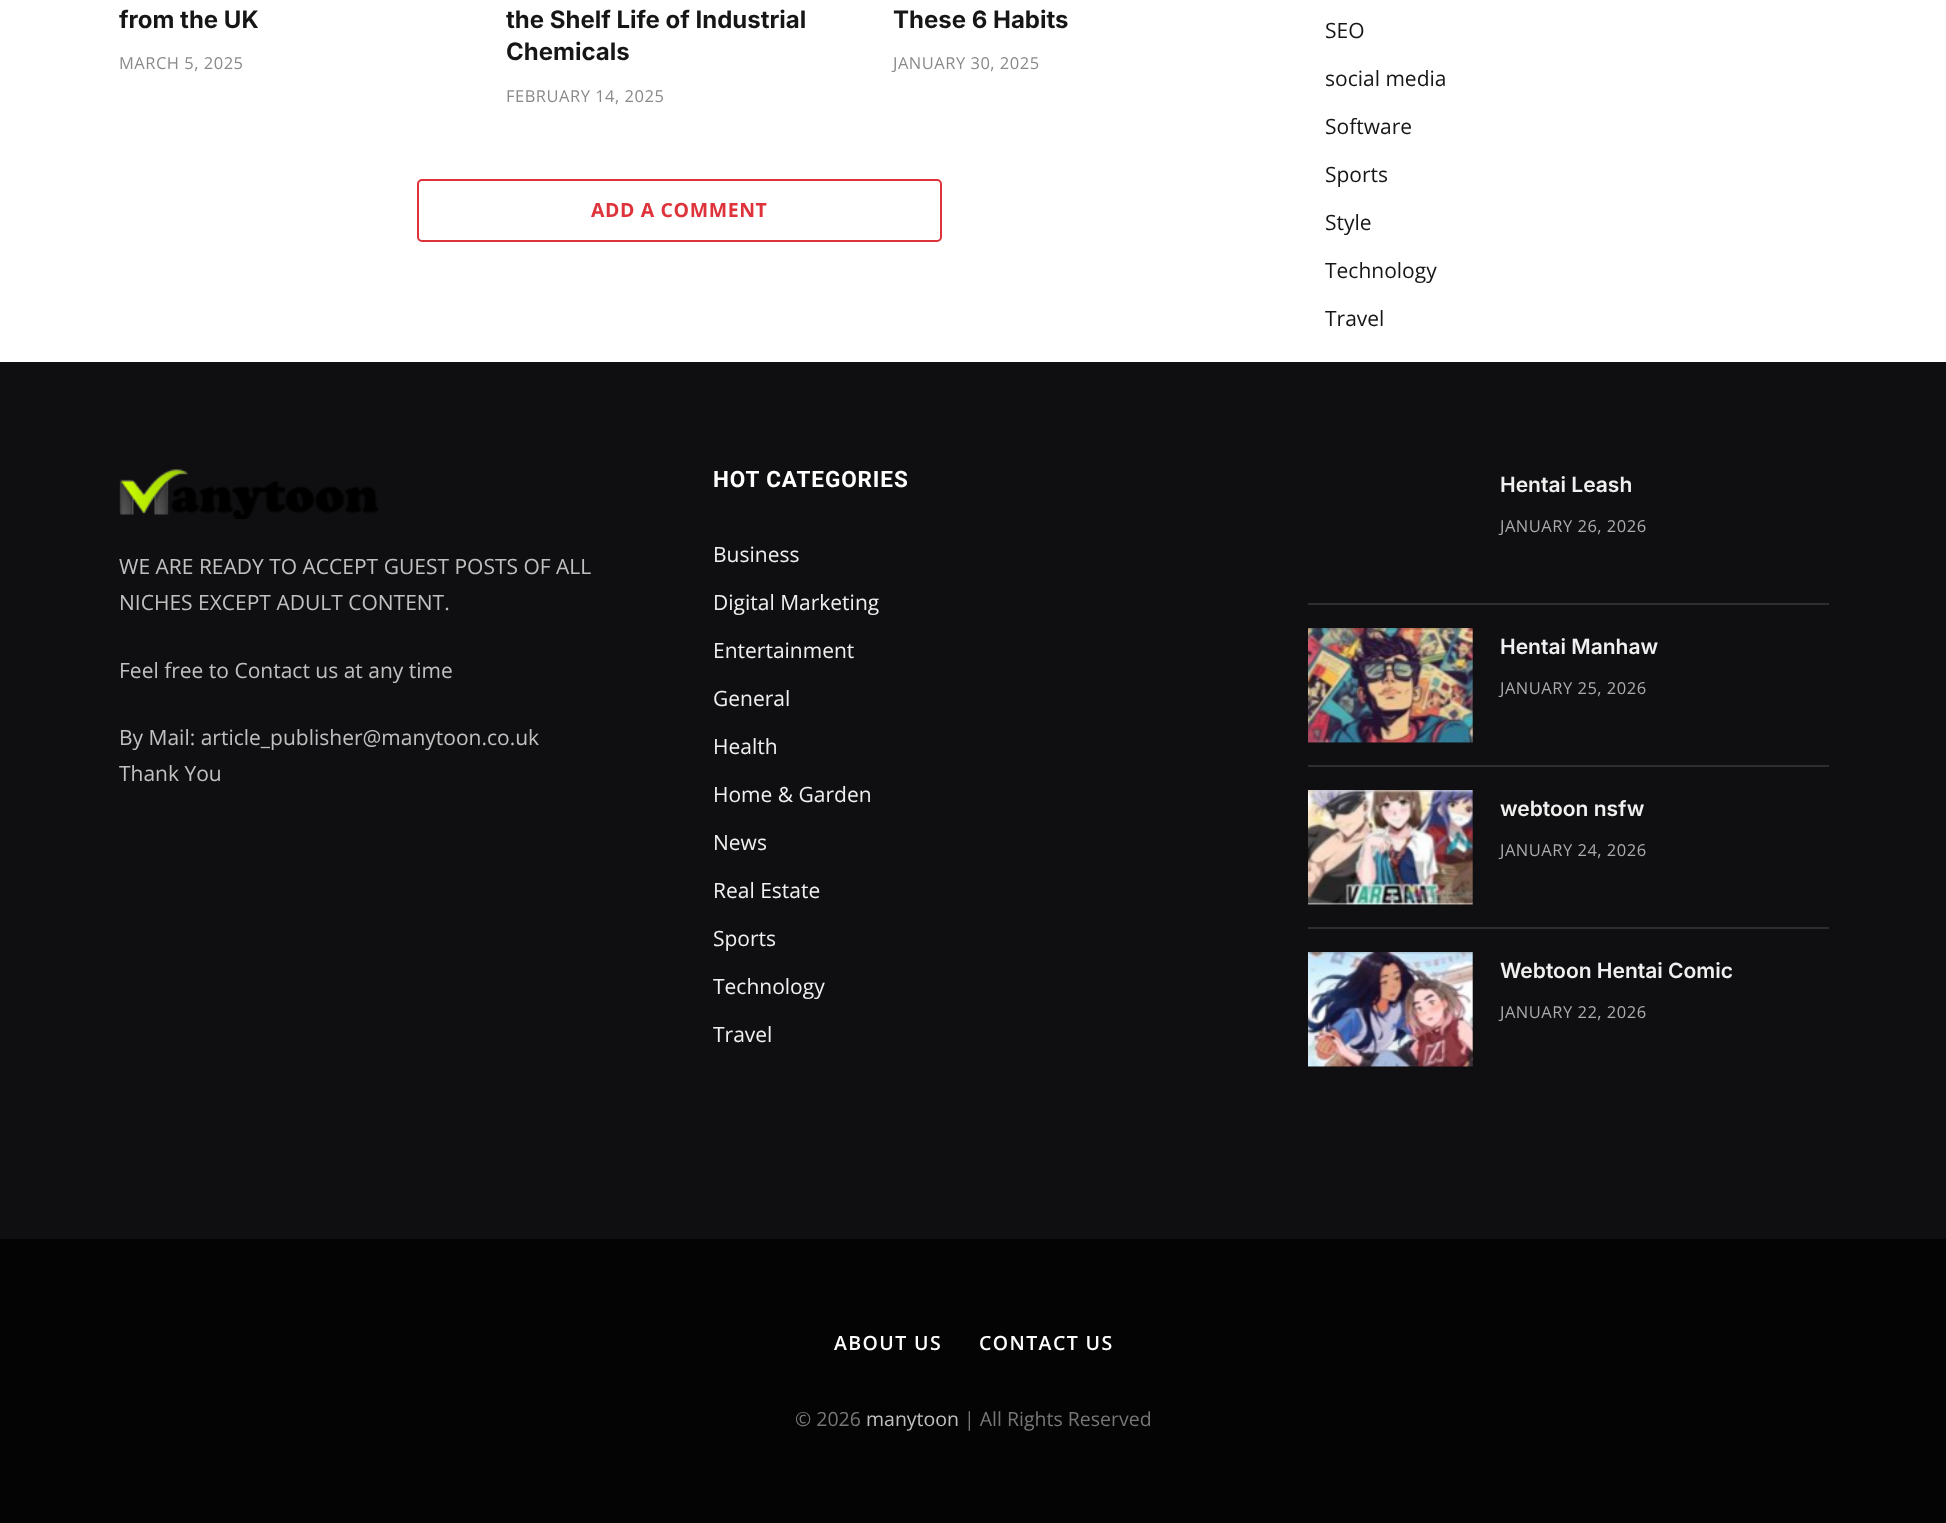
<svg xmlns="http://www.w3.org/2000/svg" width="1946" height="1523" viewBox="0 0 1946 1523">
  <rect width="100%" height="100%" fill="#fff"/>
  <rect x="418" y="180" width="523" height="61" rx="4" fill="none" stroke="#de333b" stroke-width="2"/>
  <path d="M0 362h1946v877H0z" fill="#0f0f11"/>
  <image x="119" y="469" width="259" height="50" href="img/1.png"/>
  <path d="M1308 603h521v2H1308z" fill="#2e2e30"/>
  <image x="1308" y="628" width="165" height="115" href="img/2.png"/>
  <path d="M1308 765h521v2H1308z" fill="#2e2e30"/>
  <image x="1308" y="790" width="165" height="115" href="img/3.png"/>
  <path d="M1308 927h521v2H1308z" fill="#2e2e30"/>
  <image x="1308" y="952" width="165" height="115" href="img/4.png"/>
  <path d="M0 1239h1946v284H0z" fill="#040404"/>
  <text x="119" y="28" font-family="Inter" font-size="24" font-weight="bold" fill="#161616">from the UK</text>
  <text x="119" y="69" font-family="Open Sans" font-size="16.5" letter-spacing="0.5" fill="#8a8a8a">MARCH 5, 2025</text>
  <g font-family="Inter" font-size="24" font-weight="bold" fill="#161616">
    <text x="506" y="28">the Shelf Life of Industrial</text>
    <text x="506" y="60">Chemicals</text>
  </g>
  <text x="506" y="102" font-family="Open Sans" font-size="16.5" letter-spacing="0.5" fill="#8a8a8a">FEBRUARY 14, 2025</text>
  <text x="893" y="28" font-family="Inter" font-size="24" font-weight="bold" fill="#161616">These 6 Habits</text>
  <text x="893" y="69" font-family="Open Sans" font-size="16.5" letter-spacing="0.5" fill="#8a8a8a">JANUARY 30, 2025</text>
  <text x="591" y="217" font-family="Open Sans" font-size="19.5" font-weight="bold" letter-spacing="0.6" fill="#de333b">ADD A COMMENT</text>
  <g font-family="Open Sans" font-size="21" fill="#161616">
    <text x="1325" y="38">SEO</text>
    <text x="1325" y="86">social media</text>
    <text x="1325" y="134">Software</text>
    <text x="1325" y="182">Sports</text>
    <text x="1325" y="230">Style</text>
    <text x="1325" y="278">Technology</text>
    <text x="1325" y="326">Travel</text>
  </g>
  <g font-family="Open Sans" font-size="21" fill="#c0c0c0">
    <text x="119" y="574">WE ARE READY TO ACCEPT GUEST POSTS OF ALL</text>
    <text x="119" y="610">NICHES EXCEPT ADULT CONTENT.</text>
    <text x="119" y="678">Feel free to Contact us at any time</text>
    <text x="119" y="745">By Mail: article_publisher@manytoon.co.uk</text>
    <text x="119" y="781">Thank You</text>
  </g>
  <text x="713" y="487" font-family="Roboto" font-size="22.5" font-weight="bold" letter-spacing="0.9" fill="#fff">HOT CATEGORIES</text>
  <g font-family="Open Sans" font-size="21" fill="#f0f0f0">
    <text x="713" y="562">Business</text>
    <text x="713" y="610">Digital Marketing</text>
    <text x="713" y="658">Entertainment</text>
    <text x="713" y="706">General</text>
    <text x="713" y="754">Health</text>
    <text x="713" y="802">Home &amp; Garden</text>
    <text x="713" y="850">News</text>
    <text x="713" y="898">Real Estate</text>
    <text x="713" y="946">Sports</text>
    <text x="713" y="994">Technology</text>
    <text x="713" y="1042">Travel</text>
  </g>
  <text x="1500" y="492" font-family="Inter" font-size="21" font-weight="600" fill="#f0f0f0">Hentai Leash</text>
  <text x="1500" y="532" font-family="Open Sans" font-size="16.5" letter-spacing="0.5" fill="#ababac">JANUARY 26, 2026</text>
  <text x="1500" y="654" font-family="Inter" font-size="21" font-weight="600" fill="#f0f0f0">Hentai Manhaw</text>
  <text x="1500" y="694" font-family="Open Sans" font-size="16.5" letter-spacing="0.5" fill="#ababac">JANUARY 25, 2026</text>
  <text x="1500" y="816" font-family="Inter" font-size="21" font-weight="600" fill="#f0f0f0">webtoon nsfw</text>
  <text x="1500" y="856" font-family="Open Sans" font-size="16.5" letter-spacing="0.5" fill="#ababac">JANUARY 24, 2026</text>
  <text x="1500" y="978" font-family="Inter" font-size="21" font-weight="600" fill="#f0f0f0">Webtoon Hentai Comic</text>
  <text x="1500" y="1018" font-family="Open Sans" font-size="16.5" letter-spacing="0.5" fill="#ababac">JANUARY 22, 2026</text>
  <g font-family="Open Sans" font-size="19.5" font-weight="600" letter-spacing="1.4" fill="#fff">
    <text x="834" y="1350">ABOUT US</text>
    <text x="979" y="1350">CONTACT US</text>
  </g>
  <text x="795" y="1426" font-family="Open Sans" font-size="19.5" fill="#777">© 2026</text>
  <text x="866" y="1426" font-family="Open Sans" font-size="19.5" fill="#c0c0c0">manytoon</text>
  <text x="964" y="1426" font-family="Open Sans" font-size="19.5" fill="#777">| All Rights Reserved</text>
</svg>
